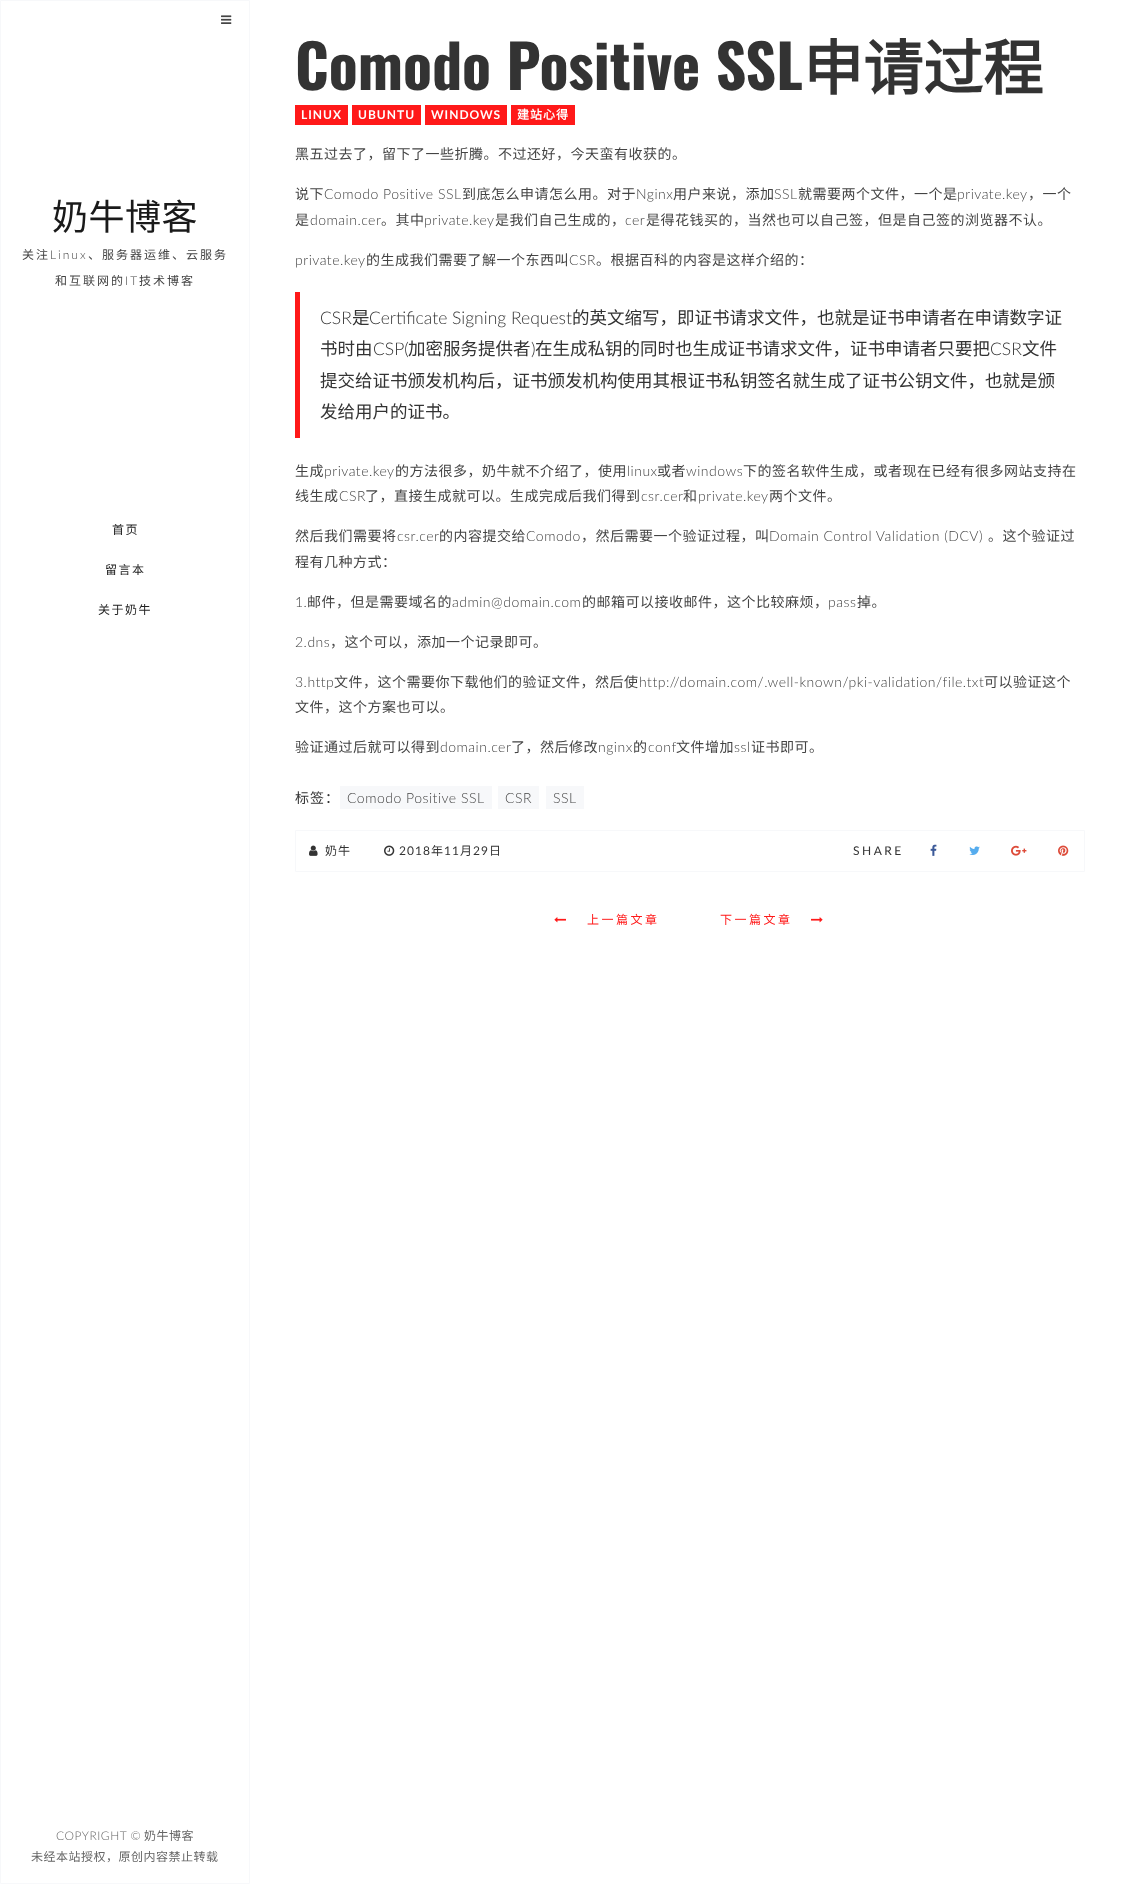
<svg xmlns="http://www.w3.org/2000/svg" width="1130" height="1884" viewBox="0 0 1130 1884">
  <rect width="100%" height="100%" fill="#fff"/>
  <path d="M0.5 0.5h249v1883H0.5z" fill="none" stroke="#f7f8fa"/>
  <image x="221" y="15" width="11" height="9" href="img/1.png"/>
  <path d="M295 105h53v20H295z" fill="#ff1919"/>
  <path d="M352 105h69v20H352z" fill="#ff1919"/>
  <path d="M425 105h82v20H425z" fill="#ff1919"/>
  <path d="M511 105h64v20H511z" fill="#ff1919"/>
  <path d="M295 292h5v146H295z" fill="#ff1919"/>
  <path d="M340 786h152v23H340z" fill="#f7f8fa"/>
  <path d="M498 786h41v23H498z" fill="#f7f8fa"/>
  <path d="M546 786h38v23H546z" fill="#f7f8fa"/>
  <path d="M295.5 830.5h789v41H295.5z" fill="none" stroke="#f7f8fa"/>
  <image x="309" y="845" width="9" height="11" href="img/2.png"/>
  <image x="384" y="845" width="11" height="11" href="img/3.png"/>
  <image x="930" y="844" width="7" height="12" href="img/4.png"/>
  <image x="969" y="846" width="11" height="9" href="img/5.png"/>
  <image x="1011" y="845" width="16" height="11" href="img/6.png"/>
  <image x="1058" y="845" width="11" height="11" href="img/7.png"/>
  <image x="554" y="917" width="12" height="6" href="img/8.png"/>
  <image x="811" y="917" width="12" height="6" href="img/9.png"/>
  <text x="52" y="230" font-family="Noto Sans CJK SC" font-size="36" letter-spacing="0.5" fill="#1a1a1a">奶牛博客</text>
  <text x="22" y="259" font-family="Noto Sans CJK SC" font-size="12" letter-spacing="2" fill="#444">关注</text>
  <text x="50" y="259" font-family="Lato" font-size="12" font-weight="300" letter-spacing="2" fill="#444">Linux</text>
  <g font-family="Noto Sans CJK SC" font-size="12" letter-spacing="2" fill="#444">
    <text x="88" y="259">、服务器运维、云服务</text>
    <text x="55" y="285">和互联网的</text>
  </g>
  <text x="125" y="285" font-family="Lato" font-size="12" font-weight="300" letter-spacing="2" fill="#444">IT</text>
  <text x="139" y="285" font-family="Noto Sans CJK SC" font-size="12" letter-spacing="2" fill="#444">技术博客</text>
  <g font-family="Noto Sans CJK SC" font-size="12" letter-spacing="1.5" fill="#222">
    <text x="112" y="534">首页</text>
    <text x="105" y="574">留言本</text>
    <text x="98" y="614">关于奶牛</text>
  </g>
  <text x="56" y="1840" font-family="Lato" font-size="12" font-weight="300" letter-spacing="0.5" fill="#666">COPYRIGHT ©</text>
  <g font-family="Noto Sans CJK SC" font-size="12" letter-spacing="0.5" fill="#666">
    <text x="144" y="1840">奶牛博客</text>
    <text x="31" y="1861">未经本站授权，原创内容禁止转载</text>
  </g>
  <text x="295" y="90" font-family="Oswald" font-size="60" font-weight="bold" fill="#333">Comodo Positive SSL</text>
  <text x="803" y="90" font-family="Noto Sans CJK SC" font-size="60" font-weight="bold" fill="#333">申请过程</text>
  <g font-family="Lato" font-size="12" font-weight="bold" letter-spacing="1" fill="#fff">
    <text x="301" y="119">LINUX</text>
    <text x="358" y="119">UBUNTU</text>
    <text x="431" y="119">WINDOWS</text>
  </g>
  <text x="517" y="119" font-family="Noto Sans CJK SC" font-size="12" font-weight="bold" letter-spacing="1" fill="#fff">建站心得</text>
  <g font-family="Noto Sans CJK SC" font-size="14" letter-spacing="0.5" fill="#444">
    <text x="295" y="159">黑五过去了，留下了一些折腾。不过还好，今天蛮有收获的。</text>
    <text x="295" y="199">说下</text>
  </g>
  <text x="324" y="199" font-family="Lato" font-size="14" font-weight="300" letter-spacing="0.5" fill="#444">Comodo Positive SSL</text>
  <text x="462" y="199" font-family="Noto Sans CJK SC" font-size="14" letter-spacing="0.5" fill="#444">到底怎么申请怎么用。对于</text>
  <text x="636" y="199" font-family="Lato" font-size="14" font-weight="300" letter-spacing="0.5" fill="#444">Nginx</text>
  <text x="673" y="199" font-family="Noto Sans CJK SC" font-size="14" letter-spacing="0.5" fill="#444">用户来说，添加</text>
  <text x="774" y="199" font-family="Lato" font-size="14" font-weight="300" letter-spacing="0.5" fill="#444">SSL</text>
  <text x="798" y="199" font-family="Noto Sans CJK SC" font-size="14" letter-spacing="0.5" fill="#444">就需要两个文件，一个是</text>
  <text x="957" y="199" font-family="Lato" font-size="14" font-weight="300" letter-spacing="0.5" fill="#444">private.key</text>
  <g font-family="Noto Sans CJK SC" font-size="14" letter-spacing="0.5" fill="#444">
    <text x="1028" y="199">，一个</text>
    <text x="295" y="225">是</text>
  </g>
  <text x="310" y="225" font-family="Lato" font-size="14" font-weight="300" letter-spacing="0.5" fill="#444">domain.cer</text>
  <text x="381" y="225" font-family="Noto Sans CJK SC" font-size="14" letter-spacing="0.5" fill="#444">。其中</text>
  <text x="424" y="225" font-family="Lato" font-size="14" font-weight="300" letter-spacing="0.5" fill="#444">private.key</text>
  <text x="495" y="225" font-family="Noto Sans CJK SC" font-size="14" letter-spacing="0.5" fill="#444">是我们自己生成的，</text>
  <text x="625" y="225" font-family="Lato" font-size="14" font-weight="300" letter-spacing="0.5" fill="#444">cer</text>
  <text x="646" y="225" font-family="Noto Sans CJK SC" font-size="14" letter-spacing="0.5" fill="#444">是得花钱买的，当然也可以自己签，但是自己签的浏览器不认。</text>
  <text x="295" y="265" font-family="Lato" font-size="14" font-weight="300" letter-spacing="0.5" fill="#444">private.key</text>
  <text x="366" y="265" font-family="Noto Sans CJK SC" font-size="14" letter-spacing="0.5" fill="#444">的生成我们需要了解一个东西叫</text>
  <text x="569" y="265" font-family="Lato" font-size="14" font-weight="300" letter-spacing="0.5" fill="#444">CSR</text>
  <text x="596" y="265" font-family="Noto Sans CJK SC" font-size="14" letter-spacing="0.5" fill="#444">。根据百科的内容是这样介绍的：</text>
  <text x="320" y="324" font-family="Lato" font-size="17.5" font-weight="300" fill="#333">CSR</text>
  <text x="352" y="324" font-family="Noto Sans CJK SC" font-size="17.5" fill="#333">是</text>
  <text x="369" y="324" font-family="Lato" font-size="17.5" font-weight="300" fill="#333">Certificate Signing Request</text>
  <g font-family="Noto Sans CJK SC" font-size="17.5" fill="#333">
    <text x="572" y="324">的英文缩写，即证书请求文件，也就是证书申请者在申请数字证</text>
    <text x="320" y="355">书时由</text>
  </g>
  <text x="373" y="355" font-family="Lato" font-size="17.5" font-weight="300" fill="#333">CSP(</text>
  <text x="408" y="355" font-family="Noto Sans CJK SC" font-size="17.5" fill="#333">加密服务提供者</text>
  <text x="531" y="355" font-family="Lato" font-size="17.5" font-weight="300" fill="#333">)</text>
  <text x="535" y="355" font-family="Noto Sans CJK SC" font-size="17.5" fill="#333">在生成私钥的同时也生成证书请求文件，证书申请者只要把</text>
  <text x="990" y="355" font-family="Lato" font-size="17.5" font-weight="300" fill="#333">CSR</text>
  <g font-family="Noto Sans CJK SC" font-size="17.5" fill="#333">
    <text x="1022" y="355">文件</text>
    <text x="320" y="387">提交给证书颁发机构后，证书颁发机构使用其根证书私钥签名就生成了证书公钥文件，也就是颁</text>
    <text x="320" y="418">发给用户的证书。</text>
  </g>
  <text x="295" y="476" font-family="Noto Sans CJK SC" font-size="14" letter-spacing="0.5" fill="#444">生成</text>
  <text x="324" y="476" font-family="Lato" font-size="14" font-weight="300" letter-spacing="0.5" fill="#444">private.key</text>
  <text x="395" y="476" font-family="Noto Sans CJK SC" font-size="14" letter-spacing="0.5" fill="#444">的方法很多，奶牛就不介绍了，使用</text>
  <text x="627" y="476" font-family="Lato" font-size="14" font-weight="300" letter-spacing="0.5" fill="#444">linux</text>
  <text x="657" y="476" font-family="Noto Sans CJK SC" font-size="14" letter-spacing="0.5" fill="#444">或者</text>
  <text x="686" y="476" font-family="Lato" font-size="14" font-weight="300" letter-spacing="0.5" fill="#444">windows</text>
  <g font-family="Noto Sans CJK SC" font-size="14" letter-spacing="0.5" fill="#444">
    <text x="743" y="476">下的签名软件生成，或者现在已经有很多网站支持在</text>
    <text x="295" y="501">线生成</text>
  </g>
  <text x="339" y="501" font-family="Lato" font-size="14" font-weight="300" letter-spacing="0.5" fill="#444">CSR</text>
  <text x="365" y="501" font-family="Noto Sans CJK SC" font-size="14" letter-spacing="0.5" fill="#444">了，直接生成就可以。生成完成后我们得到</text>
  <text x="641" y="501" font-family="Lato" font-size="14" font-weight="300" letter-spacing="0.5" fill="#444">csr.cer</text>
  <text x="683" y="501" font-family="Noto Sans CJK SC" font-size="14" letter-spacing="0.5" fill="#444">和</text>
  <text x="698" y="501" font-family="Lato" font-size="14" font-weight="300" letter-spacing="0.5" fill="#444">private.key</text>
  <g font-family="Noto Sans CJK SC" font-size="14" letter-spacing="0.5" fill="#444">
    <text x="769" y="501">两个文件。</text>
    <text x="295" y="541">然后我们需要将</text>
  </g>
  <text x="397" y="541" font-family="Lato" font-size="14" font-weight="300" letter-spacing="0.5" fill="#444">csr.cer</text>
  <text x="439" y="541" font-family="Noto Sans CJK SC" font-size="14" letter-spacing="0.5" fill="#444">的内容提交给</text>
  <text x="526" y="541" font-family="Lato" font-size="14" font-weight="300" letter-spacing="0.5" fill="#444">Comodo</text>
  <text x="581" y="541" font-family="Noto Sans CJK SC" font-size="14" letter-spacing="0.5" fill="#444">，然后需要一个验证过程，叫</text>
  <text x="769" y="541" font-family="Lato" font-size="14" font-weight="300" letter-spacing="0.5" fill="#444">Domain Control Validation (DCV)</text>
  <g font-family="Noto Sans CJK SC" font-size="14" letter-spacing="0.5" fill="#444">
    <text x="988" y="541">。这个验证过</text>
    <text x="295" y="567">程有几种方式：</text>
  </g>
  <text x="295" y="607" font-family="Lato" font-size="14" font-weight="300" letter-spacing="0.5" fill="#444">1.</text>
  <text x="307" y="607" font-family="Noto Sans CJK SC" font-size="14" letter-spacing="0.5" fill="#444">邮件，但是需要域名的</text>
  <text x="452" y="607" font-family="Lato" font-size="14" font-weight="300" letter-spacing="0.5" fill="#444">admin@domain.com</text>
  <text x="582" y="607" font-family="Noto Sans CJK SC" font-size="14" letter-spacing="0.5" fill="#444">的邮箱可以接收邮件，这个比较麻烦，</text>
  <text x="828" y="607" font-family="Lato" font-size="14" font-weight="300" letter-spacing="0.5" fill="#444">pass</text>
  <text x="857" y="607" font-family="Noto Sans CJK SC" font-size="14" letter-spacing="0.5" fill="#444">掉。</text>
  <text x="295" y="647" font-family="Lato" font-size="14" font-weight="300" letter-spacing="0.5" fill="#444">2.dns</text>
  <text x="330" y="647" font-family="Noto Sans CJK SC" font-size="14" letter-spacing="0.5" fill="#444">，这个可以，添加一个记录即可。</text>
  <text x="295" y="687" font-family="Lato" font-size="14" font-weight="300" letter-spacing="0.5" fill="#444">3.http</text>
  <text x="334" y="687" font-family="Noto Sans CJK SC" font-size="14" letter-spacing="0.5" fill="#444">文件，这个需要你下载他们的验证文件，然后使</text>
  <text x="639" y="687" font-family="Lato" font-size="14" font-weight="300" letter-spacing="0.5" fill="#444">http://domain.com/.well-known/pki-validation/file.txt</text>
  <g font-family="Noto Sans CJK SC" font-size="14" letter-spacing="0.5" fill="#444">
    <text x="984" y="687">可以验证这个</text>
    <text x="295" y="712">文件，这个方案也可以。</text>
    <text x="295" y="752">验证通过后就可以得到</text>
  </g>
  <text x="440" y="752" font-family="Lato" font-size="14" font-weight="300" letter-spacing="0.5" fill="#444">domain.cer</text>
  <text x="511" y="752" font-family="Noto Sans CJK SC" font-size="14" letter-spacing="0.5" fill="#444">了，然后修改</text>
  <text x="598" y="752" font-family="Lato" font-size="14" font-weight="300" letter-spacing="0.5" fill="#444">nginx</text>
  <text x="633" y="752" font-family="Noto Sans CJK SC" font-size="14" letter-spacing="0.5" fill="#444">的</text>
  <text x="648" y="752" font-family="Lato" font-size="14" font-weight="300" letter-spacing="0.5" fill="#444">conf</text>
  <text x="676" y="752" font-family="Noto Sans CJK SC" font-size="14" letter-spacing="0.5" fill="#444">文件增加</text>
  <text x="734" y="752" font-family="Lato" font-size="14" font-weight="300" letter-spacing="0.5" fill="#444">ssl</text>
  <text x="751" y="752" font-family="Noto Sans CJK SC" font-size="14" letter-spacing="0.5" fill="#444">证书即可。</text>
  <text x="295" y="803" font-family="Noto Sans CJK SC" font-size="14" letter-spacing="1" fill="#333">标签：</text>
  <g font-family="Lato" font-size="14" font-weight="300" letter-spacing="0.5" fill="#444">
    <text x="347" y="803">Comodo Positive SSL</text>
    <text x="505" y="803">CSR</text>
    <text x="553" y="803">SSL</text>
  </g>
  <text x="325" y="855" font-family="Noto Sans CJK SC" font-size="12" letter-spacing="1" fill="#333">奶牛</text>
  <text x="399" y="855" font-family="Lato" font-size="12" letter-spacing="1" fill="#333">2018</text>
  <text x="431" y="855" font-family="Noto Sans CJK SC" font-size="12" letter-spacing="1" fill="#333">年</text>
  <text x="444" y="855" font-family="Lato" font-size="12" letter-spacing="1" fill="#333">11</text>
  <text x="460" y="855" font-family="Noto Sans CJK SC" font-size="12" letter-spacing="1" fill="#333">月</text>
  <text x="473" y="855" font-family="Lato" font-size="12" letter-spacing="1" fill="#333">29</text>
  <text x="489" y="855" font-family="Noto Sans CJK SC" font-size="12" letter-spacing="1" fill="#333">日</text>
  <text x="853" y="855" font-family="Lato" font-size="12" letter-spacing="2.5" fill="#333">SHARE</text>
  <g font-family="Noto Sans CJK SC" font-size="12" letter-spacing="2.5" fill="#ff1919">
    <text x="587" y="924">上一篇文章</text>
    <text x="720" y="924">下一篇文章</text>
  </g>
</svg>
